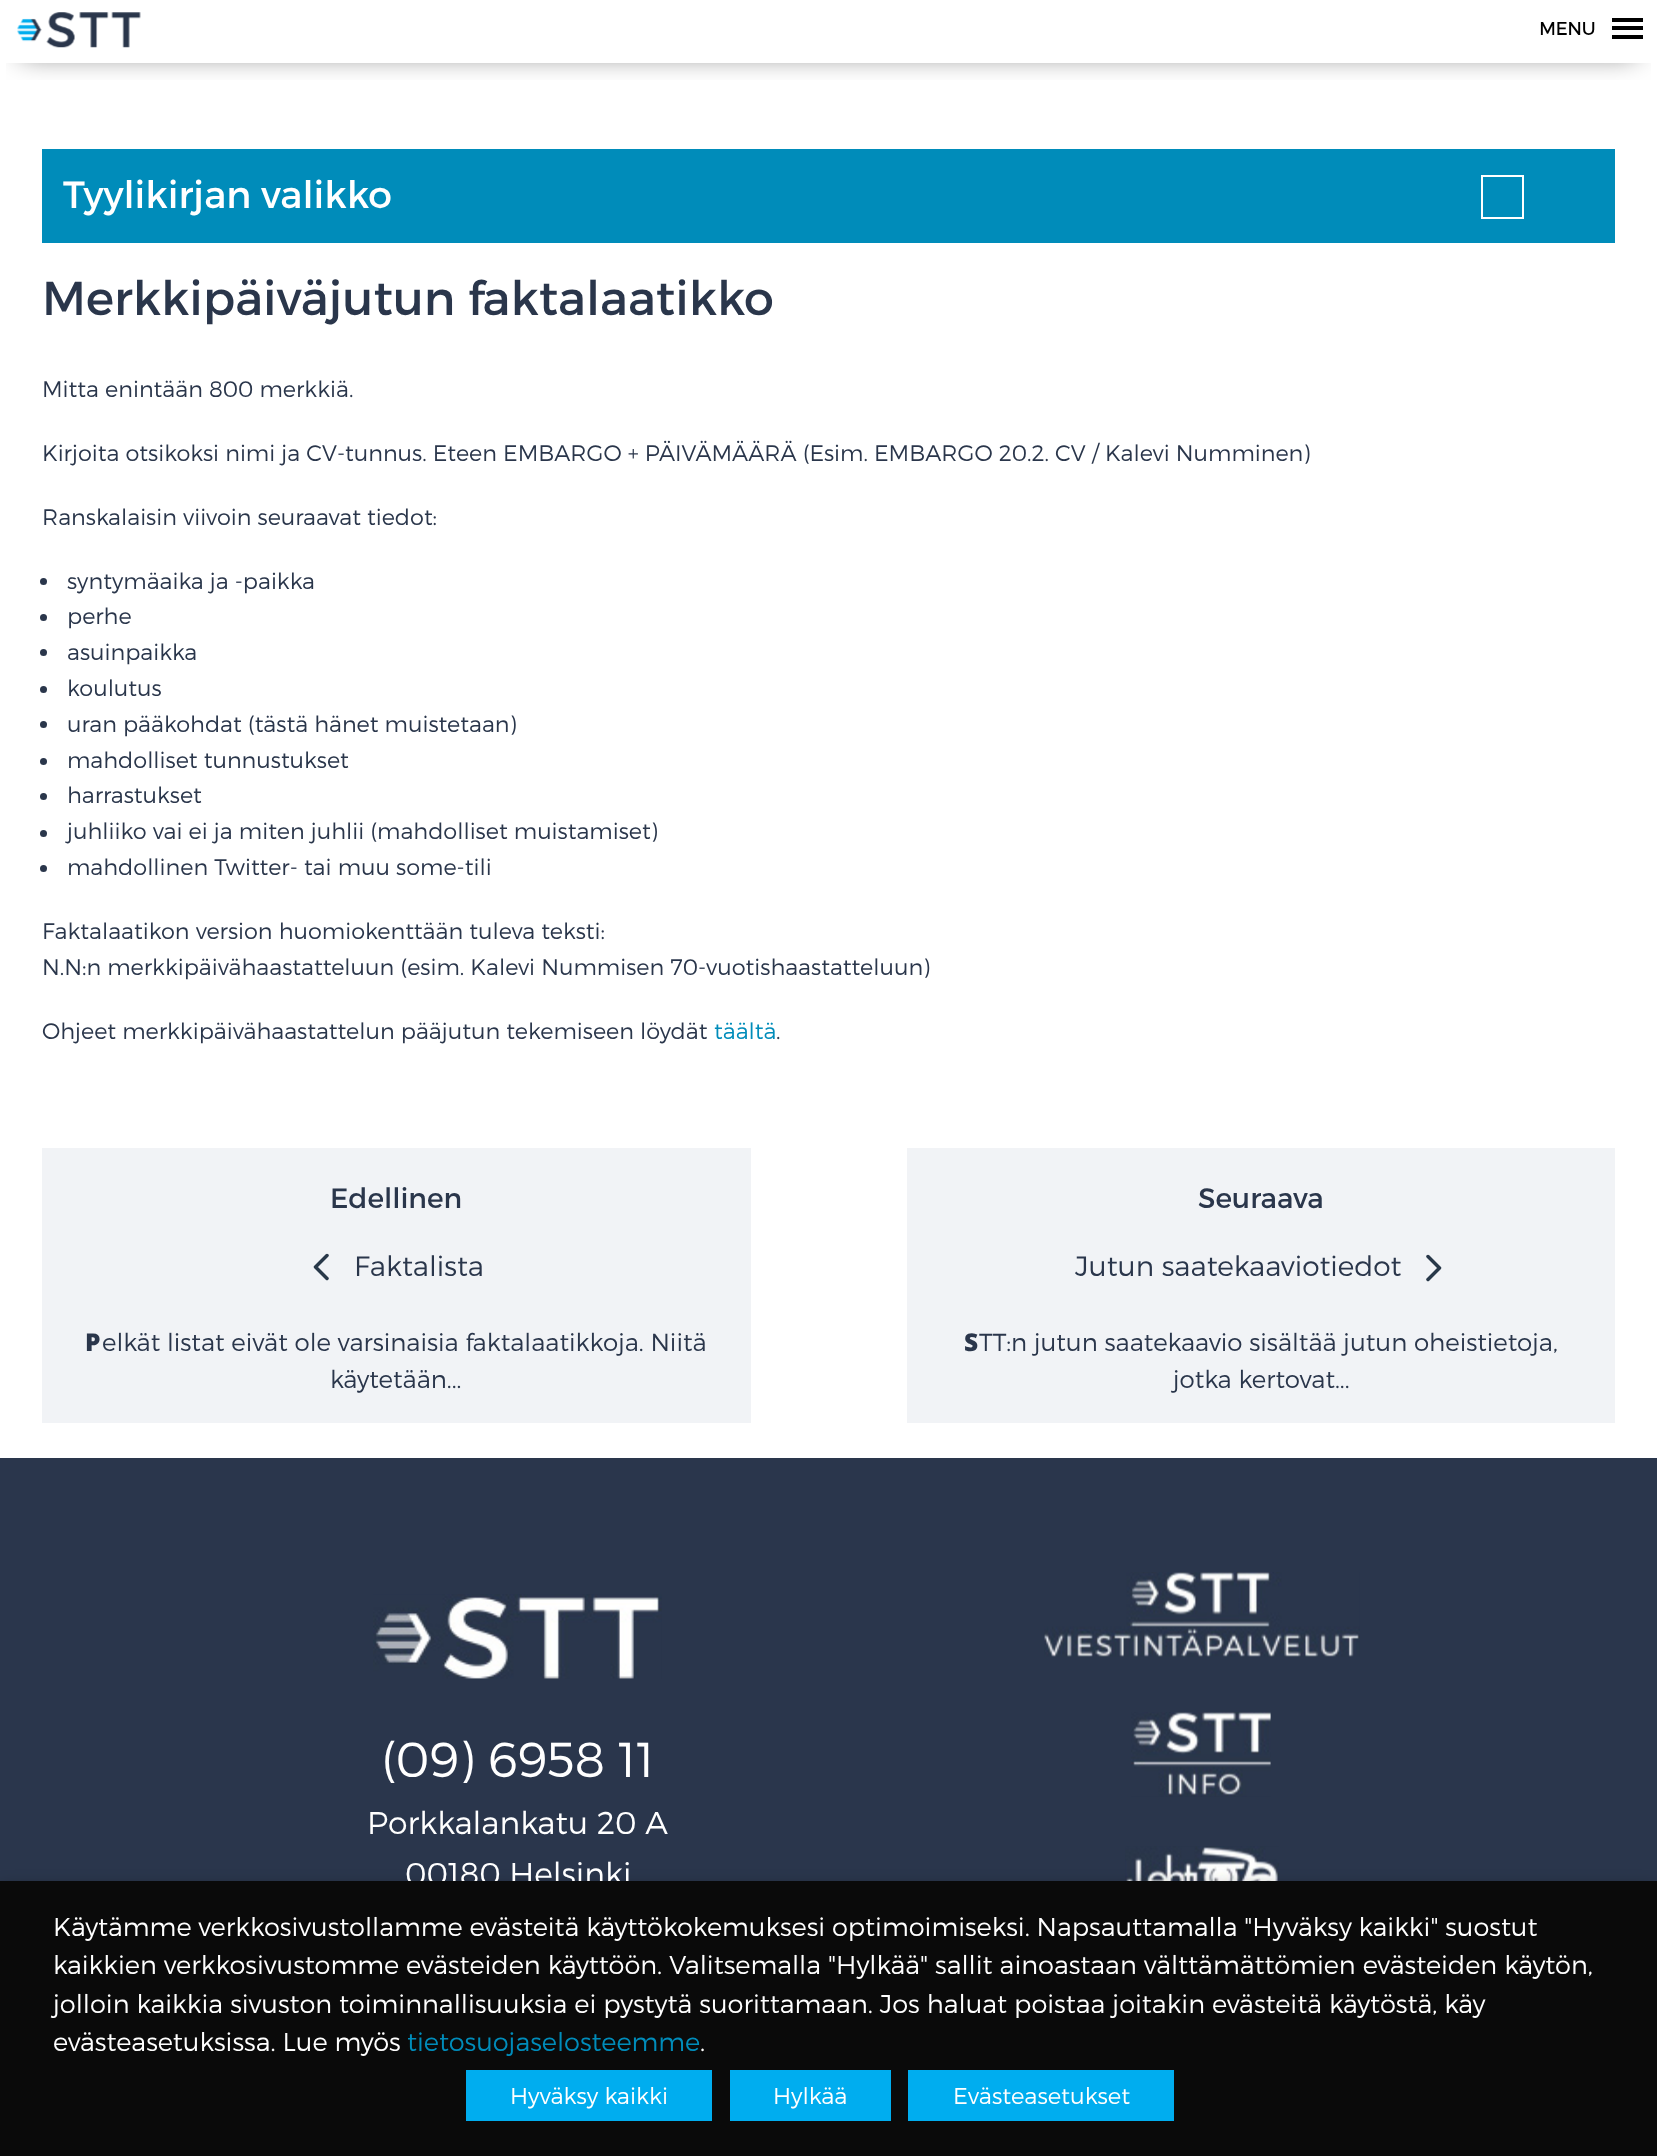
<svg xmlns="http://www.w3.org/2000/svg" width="1657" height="2156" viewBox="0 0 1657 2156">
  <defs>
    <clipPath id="clip1"><path d="M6 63h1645v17H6z"/></clipPath>
  </defs>
  <rect width="100%" height="100%" fill="#fff"/>
  <g clip-path="url(#clip1)">
    <path d="M21 33h1615v21H21z" fill="#0000009e" filter="blur(14px)"/>
  </g>
  <image x="17" y="12" width="124" height="36" href="img/1.png"/>
  <path d="M1612 35h31v4H1612z" fill="#000"/>
  <path d="M1612 26h31v4H1612z" fill="#000"/>
  <path d="M1612 18h31v4H1612z" fill="#000"/>
  <path d="M42 149h1573v94H42z" fill="#008cba"/>
  <path d="M1482 176h41v42H1482z" fill="none" stroke="#fff" stroke-width="2"/>
  <circle cx="43.5" cy="581.5" r="3.5" fill="#2a364b"/>
  <circle cx="43.5" cy="617.5" r="3.5" fill="#2a364b"/>
  <circle cx="43.5" cy="652.5" r="3.5" fill="#2a364b"/>
  <circle cx="43.5" cy="689.5" r="3.5" fill="#2a364b"/>
  <circle cx="43.5" cy="724.5" r="3.5" fill="#2a364b"/>
  <circle cx="43.5" cy="761.5" r="3.5" fill="#2a364b"/>
  <circle cx="43.5" cy="796.5" r="3.5" fill="#2a364b"/>
  <circle cx="43.5" cy="833.5" r="3.5" fill="#2a364b"/>
  <circle cx="43.5" cy="868.5" r="3.5" fill="#2a364b"/>
  <path d="M42 1148h709v275H42z" fill="#f1f3f6"/>
  <path d="M327 1278.5L315.5 1267M315.5 1267L327 1255.5" fill="none" stroke="#283849" stroke-width="3.5" stroke-linecap="round" stroke-linejoin="round"/>
  <path d="M907 1148h708v275H907z" fill="#f1f3f6"/>
  <path d="M1428 1256.5L1439.5 1268M1439.5 1268L1428 1279.5" fill="none" stroke="#283849" stroke-width="3.5" stroke-linecap="round" stroke-linejoin="round"/>
  <path d="M0 1458h1657v423H0z" fill="#2a364c"/>
  <image x="373" y="1594" width="289" height="85" href="img/2.png"/>
  <image x="1044" y="1572" width="316" height="85" href="img/3.png"/>
  <image x="1131" y="1712" width="140" height="85" href="img/4.png"/>
  <image x="1125" y="1846" width="154" height="35" href="img/5.png"/>
  <path d="M0 1890h1657v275H0z" fill="#00000080" filter="blur(9px)"/>
  <text x="1539" y="35" font-family="Montserrat" font-size="18" font-weight="bold" fill="#000">MENU</text>
  <text x="63" y="208" font-family="Montserrat" font-size="37.75" fill="#fff">Tyylikirjan valikko</text>
  <text x="42" y="315" font-family="Montserrat" font-size="47.6" fill="#2a364b">Merkkipäiväjutun faktalaatikko</text>
  <g font-family="Montserrat" font-size="22.4" font-weight="300" fill="#2a364b">
    <text x="42" y="397">Mitta enintään 800 merkkiä.</text>
    <text x="42" y="461">Kirjoita otsikoksi nimi ja CV-tunnus. Eteen EMBARGO + PÄIVÄMÄÄRÄ (Esim. EMBARGO 20.2. CV / Kalevi Numminen)</text>
    <text x="42" y="525">Ranskalaisin viivoin seuraavat tiedot:</text>
    <text x="67" y="589">syntymäaika ja -paikka</text>
    <text x="67" y="624">perhe</text>
    <text x="67" y="660">asuinpaikka</text>
    <text x="67" y="696">koulutus</text>
    <text x="67" y="732">uran pääkohdat (tästä hänet muistetaan)</text>
    <text x="67" y="768">mahdolliset tunnustukset</text>
    <text x="67" y="803">harrastukset</text>
    <text x="67" y="839">juhliiko vai ei ja miten juhlii (mahdolliset muistamiset)</text>
    <text x="67" y="875">mahdollinen Twitter- tai muu some-tili</text>
    <text x="42" y="939">Faktalaatikon version huomiokenttään tuleva teksti:</text>
    <text x="42" y="975">N.N:n merkkipäivähaastatteluun (esim. Kalevi Nummisen 70-vuotishaastatteluun)</text>
    <text x="42" y="1039">Ohjeet merkkipäivähaastattelun pääjutun tekemiseen löydät</text>
  </g>
  <text x="714" y="1039" font-family="Montserrat" font-size="22.4" font-weight="300" fill="#008cba">täältä</text>
  <text x="776" y="1039" font-family="Montserrat" font-size="22.4" font-weight="300" fill="#2a364b">.</text>
  <text x="330" y="1208" font-family="Montserrat" font-size="28" fill="#2a364b">Edellinen</text>
  <text x="354" y="1276" font-family="Montserrat" font-size="28" font-weight="300" fill="#2a364b">Faktalista</text>
  <text x="85" y="1351" font-family="Noto Sans" font-size="24.5" font-weight="900" fill="#2a364b">P</text>
  <g font-family="Montserrat" font-size="24.5" font-weight="300" fill="#2a364b">
    <text x="102" y="1351">elkät listat eivät ole varsinaisia faktalaatikkoja. Niitä</text>
    <text x="330" y="1388">käytetään...</text>
  </g>
  <text x="1198" y="1208" font-family="Montserrat" font-size="28" fill="#2a364b">Seuraava</text>
  <text x="1075" y="1276" font-family="Montserrat" font-size="28" font-weight="300" fill="#2a364b">Jutun saatekaaviotiedot</text>
  <text x="964" y="1351" font-family="Noto Sans" font-size="24.5" font-weight="900" fill="#2a364b">S</text>
  <g font-family="Montserrat" font-size="24.5" font-weight="300" fill="#2a364b">
    <text x="979" y="1351">TT:n jutun saatekaavio sisältää jutun oheistietoja,</text>
    <text x="1173" y="1388">jotka kertovat...</text>
  </g>
  <text x="381" y="1777" font-family="Montserrat" font-size="49" font-weight="300" fill="#fff">(09) 6958 11</text>
  <g font-family="Montserrat" font-size="31.5" font-weight="300" fill="#fff">
    <text x="367" y="1834">Porkkalankatu 20 A</text>
    <text x="405" y="1885">00180 Helsinki</text>
  </g>
  <path d="M0 1881h1657v275H0z" fill="#0a0a0a"/>
  <g font-family="Montserrat" font-size="25.67" font-weight="300" fill="#fff">
    <text x="53" y="1936" word-spacing="-0.25">Käytämme verkkosivustollamme evästeitä käyttökokemuksesi optimoimiseksi. Napsauttamalla "Hyväksy kaikki" suostut</text>
    <text x="53" y="1974">kaikkien verkkosivustomme evästeiden käyttöön. Valitsemalla "Hylkää" sallit ainoastaan välttämättömien evästeiden käytön,</text>
    <text x="53" y="2013">jolloin kaikkia sivuston toiminnallisuuksia ei pystytä suorittamaan. Jos haluat poistaa joitakin evästeitä käytöstä, käy</text>
    <text x="53" y="2051">evästeasetuksissa. Lue myös</text>
  </g>
  <text x="407" y="2051" font-family="Montserrat" font-size="25.67" font-weight="300" fill="#008cba">tietosuojaselosteemme</text>
  <text x="700" y="2051" font-family="Montserrat" font-size="25.67" font-weight="300" fill="#fff">.</text>
  <path d="M466 2070h246v51H466z" fill="#00adef"/>
  <text x="510" y="2104" font-family="Montserrat" font-size="22.75" font-weight="300" fill="#fff">Hyväksy kaikki</text>
  <path d="M730 2070h161v51H730z" fill="#00adef"/>
  <text x="773" y="2104" font-family="Montserrat" font-size="22.75" font-weight="300" fill="#fff">Hylkää</text>
  <path d="M908 2070h266v51H908z" fill="#00adef"/>
  <text x="953" y="2104" font-family="Montserrat" font-size="22.75" font-weight="300" fill="#fff">Evästeasetukset</text>
</svg>
